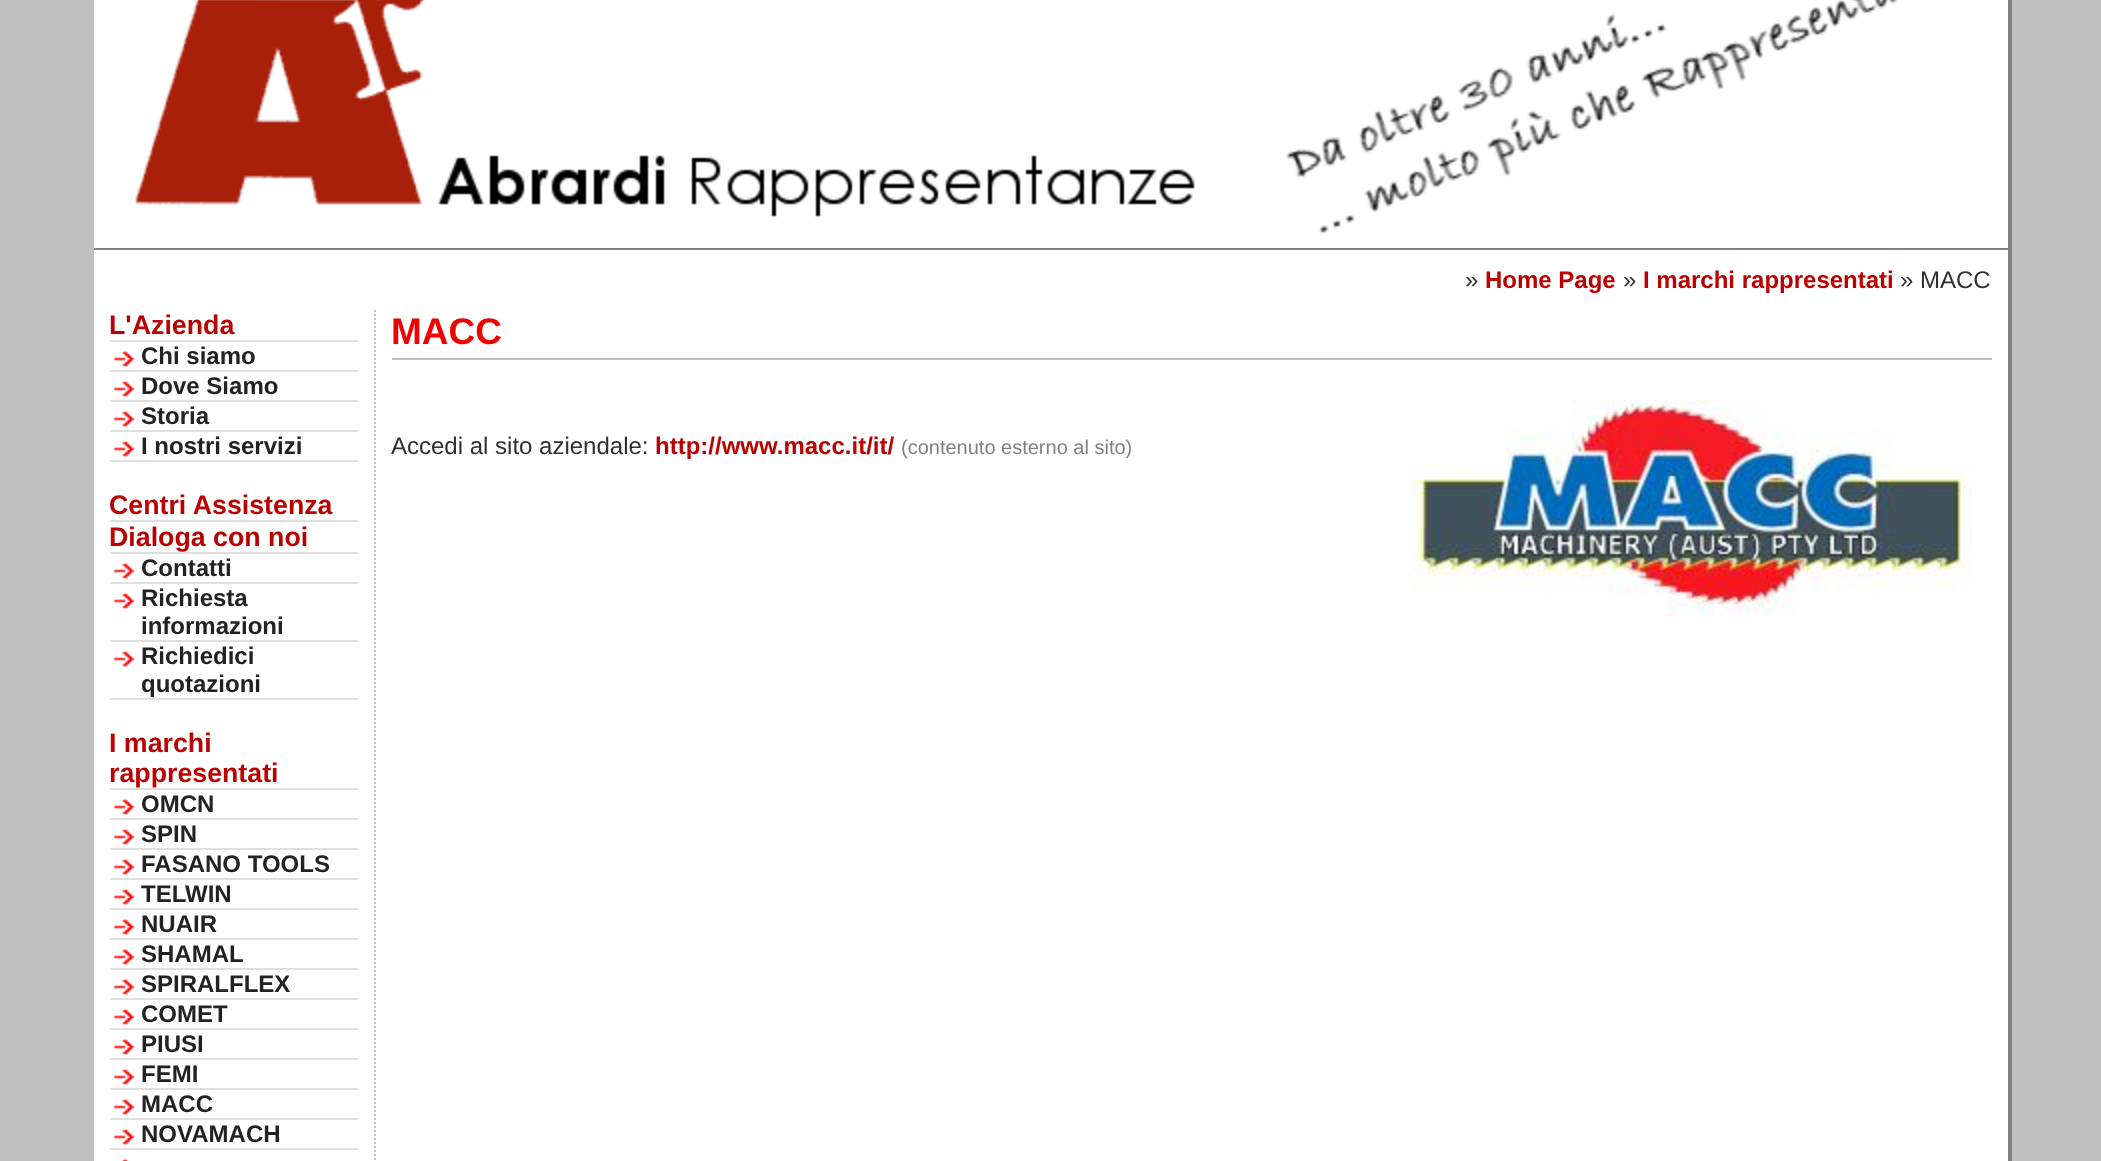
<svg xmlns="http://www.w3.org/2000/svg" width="2101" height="1161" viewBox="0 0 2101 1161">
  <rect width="100%" height="100%" fill="#c0c0c0"/>
  <path d="M94 0h1914v1161H94z" fill="#fff"/>
  <path d="M2008 0h4v1161H2008z" fill="#808080"/>
  <path d="M94 248h1914v2H94z" fill="#808080"/>
  <image x="135" y="0" width="1060" height="217" href="img/1.png"/>
  <image x="1285" y="0" width="613" height="234" href="img/2.png"/>
  <path d="M375 310V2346" fill="none" stroke="#c0c0c0" stroke-width="2" stroke-dasharray="2 2"/>
  <path d="M110 340h248v2H110z" fill="#dfdfdf"/>
  <image x="113" y="351" width="22" height="16" href="img/3.png"/>
  <path d="M110 370h248v2H110z" fill="#dfdfdf"/>
  <image x="113" y="381" width="22" height="16" href="img/3.png"/>
  <path d="M110 400h248v2H110z" fill="#dfdfdf"/>
  <image x="113" y="411" width="22" height="16" href="img/3.png"/>
  <path d="M110 430h248v2H110z" fill="#dfdfdf"/>
  <image x="113" y="441" width="22" height="16" href="img/3.png"/>
  <path d="M110 460h248v2H110z" fill="#dfdfdf"/>
  <path d="M110 520h248v2H110z" fill="#dfdfdf"/>
  <path d="M110 552h248v2H110z" fill="#dfdfdf"/>
  <image x="113" y="563" width="22" height="16" href="img/3.png"/>
  <path d="M110 582h248v2H110z" fill="#dfdfdf"/>
  <image x="113" y="593" width="22" height="16" href="img/3.png"/>
  <path d="M110 640h248v2H110z" fill="#dfdfdf"/>
  <image x="113" y="651" width="22" height="16" href="img/3.png"/>
  <path d="M110 698h248v2H110z" fill="#dfdfdf"/>
  <path d="M110 788h248v2H110z" fill="#dfdfdf"/>
  <image x="113" y="799" width="22" height="16" href="img/3.png"/>
  <path d="M110 818h248v2H110z" fill="#dfdfdf"/>
  <image x="113" y="829" width="22" height="16" href="img/3.png"/>
  <path d="M110 848h248v2H110z" fill="#dfdfdf"/>
  <image x="113" y="859" width="22" height="16" href="img/3.png"/>
  <path d="M110 878h248v2H110z" fill="#dfdfdf"/>
  <image x="113" y="889" width="22" height="16" href="img/3.png"/>
  <path d="M110 908h248v2H110z" fill="#dfdfdf"/>
  <image x="113" y="919" width="22" height="16" href="img/3.png"/>
  <path d="M110 938h248v2H110z" fill="#dfdfdf"/>
  <image x="113" y="949" width="22" height="16" href="img/3.png"/>
  <path d="M110 968h248v2H110z" fill="#dfdfdf"/>
  <image x="113" y="979" width="22" height="16" href="img/3.png"/>
  <path d="M110 998h248v2H110z" fill="#dfdfdf"/>
  <image x="113" y="1009" width="22" height="16" href="img/3.png"/>
  <path d="M110 1028h248v2H110z" fill="#dfdfdf"/>
  <image x="113" y="1039" width="22" height="16" href="img/3.png"/>
  <path d="M110 1058h248v2H110z" fill="#dfdfdf"/>
  <image x="113" y="1069" width="22" height="16" href="img/3.png"/>
  <path d="M110 1088h248v2H110z" fill="#dfdfdf"/>
  <image x="113" y="1099" width="22" height="16" href="img/3.png"/>
  <path d="M110 1118h248v2H110z" fill="#dfdfdf"/>
  <image x="113" y="1129" width="22" height="16" href="img/3.png"/>
  <path d="M110 1148h248v2H110z" fill="#dfdfdf"/>
  <image x="122" y="1159" width="6" height="2" href="img/4.png"/>
  <path d="M392 358h1600v2H392z" fill="#c0c0c0"/>
  <image x="1412" y="400" width="560" height="216" href="img/5.png"/>
  <text x="1465" y="288" font-family="Liberation Sans" font-size="24" fill="#303030">»</text>
  <text x="1485" y="288" font-family="Liberation Sans" font-size="24" font-weight="bold" fill="#b00">Home Page</text>
  <text x="1623" y="288" font-family="Liberation Sans" font-size="24" fill="#303030">»</text>
  <text x="1643" y="288" font-family="Liberation Sans" font-size="24" font-weight="bold" fill="#b00">I marchi rappresentati</text>
  <text x="1900" y="288" font-family="Liberation Sans" font-size="24" fill="#303030">» MACC</text>
  <text x="109" y="334" font-family="Liberation Sans" font-size="26.75" font-weight="bold" fill="#b00">L'Azienda</text>
  <g font-family="Liberation Sans" font-size="24" font-weight="bold" fill="#222">
    <text x="141" y="364">Chi siamo</text>
    <text x="141" y="394">Dove Siamo</text>
    <text x="141" y="424">Storia</text>
    <text x="141" y="454">I nostri servizi</text>
  </g>
  <g font-family="Liberation Sans" font-size="26.75" font-weight="bold" fill="#b00">
    <text x="109" y="514">Centri Assistenza</text>
    <text x="109" y="546">Dialoga con noi</text>
  </g>
  <g font-family="Liberation Sans" font-size="24" font-weight="bold" fill="#222">
    <text x="141" y="576">Contatti</text>
    <text x="141" y="606">Richiesta</text>
    <text x="141" y="634">informazioni</text>
    <text x="141" y="664">Richiedici</text>
    <text x="141" y="692">quotazioni</text>
  </g>
  <g font-family="Liberation Sans" font-size="26.75" font-weight="bold" fill="#b00">
    <text x="109" y="752">I marchi</text>
    <text x="109" y="782">rappresentati</text>
  </g>
  <g font-family="Liberation Sans" font-size="24" font-weight="bold" fill="#222">
    <text x="141" y="812">OMCN</text>
    <text x="141" y="842">SPIN</text>
    <text x="141" y="872">FASANO TOOLS</text>
    <text x="141" y="902">TELWIN</text>
    <text x="141" y="932">NUAIR</text>
    <text x="141" y="962">SHAMAL</text>
    <text x="141" y="992">SPIRALFLEX</text>
    <text x="141" y="1022">COMET</text>
    <text x="141" y="1052">PIUSI</text>
    <text x="141" y="1082">FEMI</text>
    <text x="141" y="1112">MACC</text>
    <text x="141" y="1142">NOVAMACH</text>
  </g>
  <text x="391" y="344" font-family="Liberation Sans" font-size="37" font-weight="bold" fill="#f00000">MACC</text>
  <text x="391" y="454" font-family="Liberation Sans" font-size="24" fill="#303030">Accedi al sito aziendale:</text>
  <text x="655" y="454" font-family="Liberation Sans" font-size="24" font-weight="bold" fill="#b00">http://www.macc.it/it/</text>
  <text x="901" y="454" font-family="Liberation Sans" font-size="20" fill="#808080">(contenuto esterno al sito)</text>
</svg>
